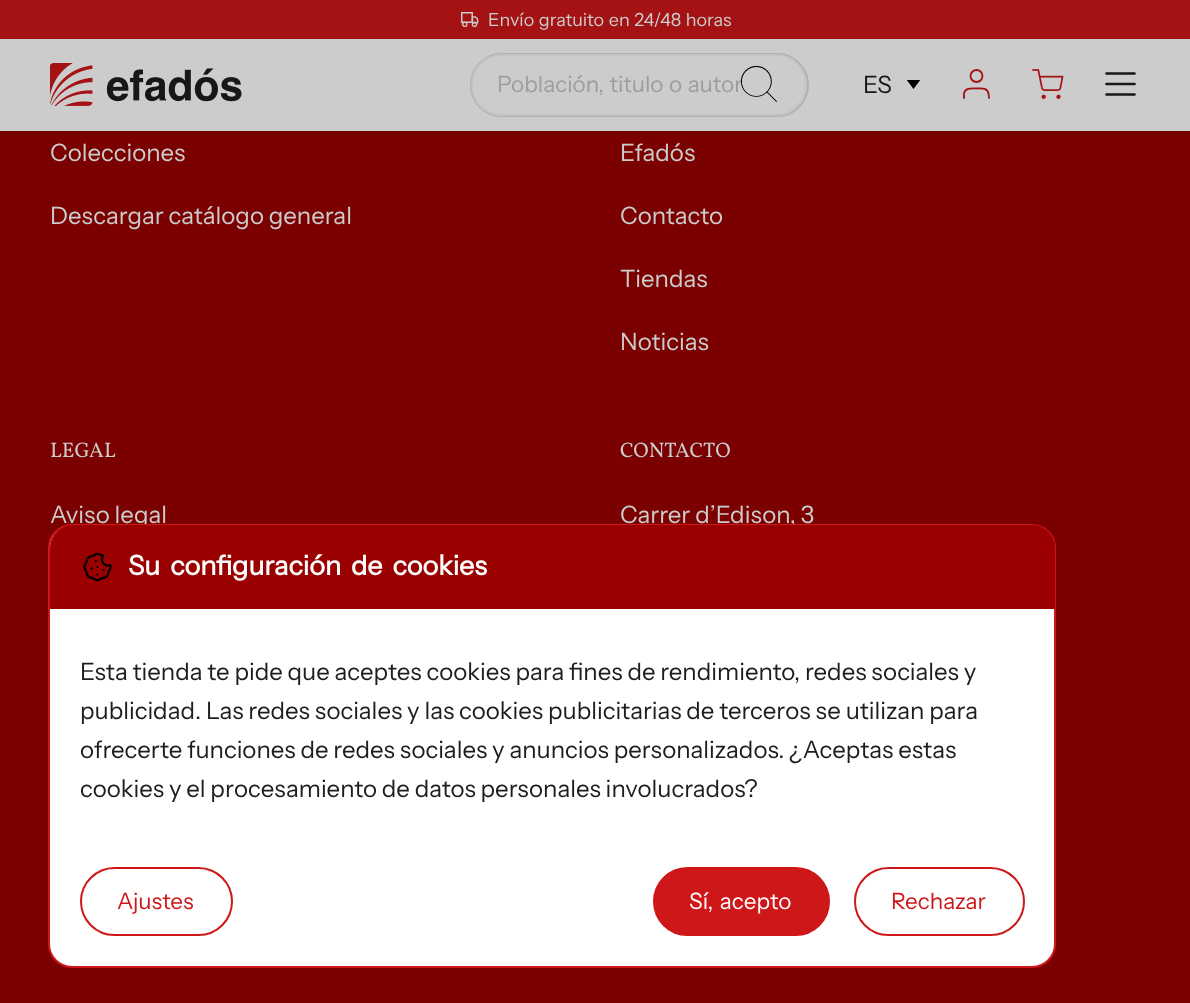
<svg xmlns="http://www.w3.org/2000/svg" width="1190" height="1003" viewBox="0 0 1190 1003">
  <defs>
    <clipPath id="clip1"><path d="M906 80h15v10H906z"/></clipPath>
  </defs>
  <rect width="100%" height="100%" fill="#7b0000"/>
  <path d="M2 3h1188v128H2z" fill="#0000001a" filter="blur(1.5px)"/>
  <path d="M0 2h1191v130H0z" fill="#0000001a" filter="blur(2px)"/>
  <path d="M0 39h1190v92H0z" fill="#ccc"/>
  <path d="M0 0h1190v39H0z" fill="#a41214"/>
  <image x="461" y="12" width="18" height="15" href="img/1.png"/>
  <image x="50" y="63" width="192" height="43" href="img/2.png"/>
  <rect x="471" y="54" width="337" height="62" rx="31" fill="none" stroke="#b1b1b1" stroke-width="2"/>
  <rect x="472" y="55" width="334" height="60" rx="30" fill="#ccc" stroke="#c4c4c4" stroke-width="2"/>
  <g clip-path="url(#clip1)">
    <path d="M913.5 89L906 79H921Z" fill="#000"/>
  </g>
  <path d="M989 98L988.5 93.5C987.5 87.5 981 88.5 976.5 88.5C972 88.5 965 87.5 964 93.5V98" fill="none" stroke="#a41214" stroke-width="1.8" stroke-linecap="round" stroke-linejoin="round"/>
  <circle cx="976.5" cy="76" r="6" fill="none" stroke="#a41214" stroke-width="1.8"/>
  <image x="1032" y="69" width="32" height="30" href="img/4.png"/>
  <path d="M1106.5 73.5H1134.5M1106.5 84H1134.5M1106.5 94.5H1134.5" fill="none" stroke="#171716" stroke-width="2.6" stroke-linecap="round" stroke-linejoin="round"/>
  <text x="488" y="26" word-spacing="1" font-family="Instrument Sans" font-size="18" fill="#ccc">Envío gratuito en 24/48 horas</text>
  <text x="497" y="92" word-spacing="1" font-family="Instrument Sans" font-size="22.5" fill="#9d9d9d">Población, titulo o autor</text>
  <image x="740" y="65" width="37" height="37" href="img/3.png"/>
  <text x="863" y="93" font-family="Instrument Sans" font-size="24" fill="#171716">ES</text>
  <g font-family="Instrument Sans" font-size="24" fill="#ccc">
    <text x="50" y="161">Colecciones</text>
    <text x="50" y="224">Descargar catálogo general</text>
    <text x="620" y="161">Efadós</text>
    <text x="620" y="224">Contacto</text>
    <text x="620" y="287">Tiendas</text>
    <text x="620" y="350">Noticias</text>
  </g>
  <text x="50" y="457" font-family="Vollkorn" font-size="21" fill="#ccc">LEGAL</text>
  <text x="50" y="523" font-family="Instrument Sans" font-size="24" fill="#ccc">Aviso legal</text>
  <text x="620" y="457" font-family="Vollkorn" font-size="21" fill="#ccc">CONTACTO</text>
  <text x="620" y="523" font-family="Instrument Sans" font-size="24" fill="#ccc">Carrer d’Edison, 3</text>
  <rect x="49" y="525" width="1006" height="442" rx="23" fill="#fff" stroke="#cd1719" stroke-width="2"/>
  <path d="M73 525H1032C1044.5 525 1055 535.5 1055 548V609H50V548C50 535.5 60.5 525 73 525Z" fill="#9a0000"/>
  <image x="83" y="552" width="29" height="30" href="img/5.png"/>
  <text x="128" y="575" word-spacing="4.5" font-family="Instrument Sans" font-size="27" font-weight="bold" fill="#fff">Su configuración de cookies</text>
  <g font-family="Instrument Sans" font-size="24" fill="#1d1d1b">
    <text x="80" y="680">Esta tienda te pide que aceptes cookies para fines de rendimiento, redes sociales y</text>
    <text x="80" y="719">publicidad. Las redes sociales y las cookies publicitarias de terceros se utilizan para</text>
    <text x="80" y="758">ofrecerte funciones de redes sociales y anuncios personalizados. ¿Aceptas estas</text>
    <text x="80" y="797">cookies y el procesamiento de datos personales involucrados?</text>
  </g>
  <rect x="81" y="868" width="151" height="67" rx="33.5" fill="none" stroke="#cd1719" stroke-width="2"/>
  <text x="117" y="909" font-family="Instrument Sans" font-size="22.5" fill="#cd1719">Ajustes</text>
  <rect x="654" y="868" width="175" height="67" rx="33.5" fill="#cd1719" stroke="#cd1719" stroke-width="2"/>
  <text x="689" y="909" word-spacing="2" font-family="Instrument Sans" font-size="22.5" fill="#fff">Sí, acepto</text>
  <rect x="855" y="868" width="169" height="67" rx="33.5" fill="none" stroke="#cd1719" stroke-width="2"/>
  <text x="891" y="909" font-family="Instrument Sans" font-size="22.5" fill="#cd1719">Rechazar</text>
</svg>
